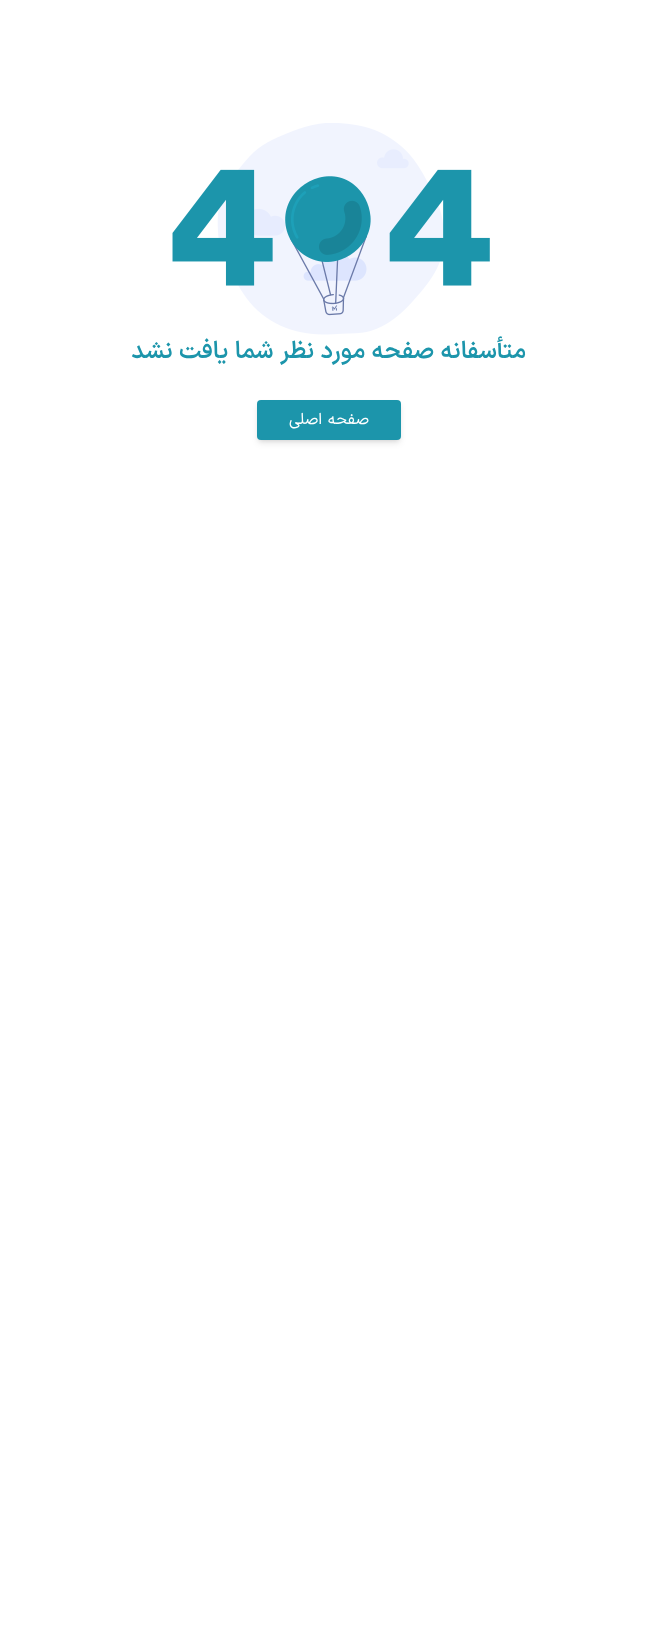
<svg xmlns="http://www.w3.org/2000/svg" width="658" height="1646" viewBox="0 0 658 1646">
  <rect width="100%" height="100%" fill="#fff"/>
  <image x="172" y="123" width="318" height="212" href="img/1.png"/>
  <rect x="259" y="404" width="140" height="36" rx="2" fill="#0000001a" filter="blur(2px)"/>
  <rect x="258" y="405" width="142" height="38" rx="3" fill="#0000001a" filter="blur(3px)"/>
  <rect x="257" y="400" width="144" height="40" rx="4" fill="#1c95ab"/>
  <text x="526" y="358" font-family="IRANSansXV" font-size="24" font-weight="600" direction="rtl" fill="#1c95ab">متأسفانه صفحه مورد نظر شما یافت نشد</text>
  <text x="369" y="424" font-family="IRANSansXV" font-size="16" direction="rtl" fill="#fff">صفحه اصلی</text>
</svg>
